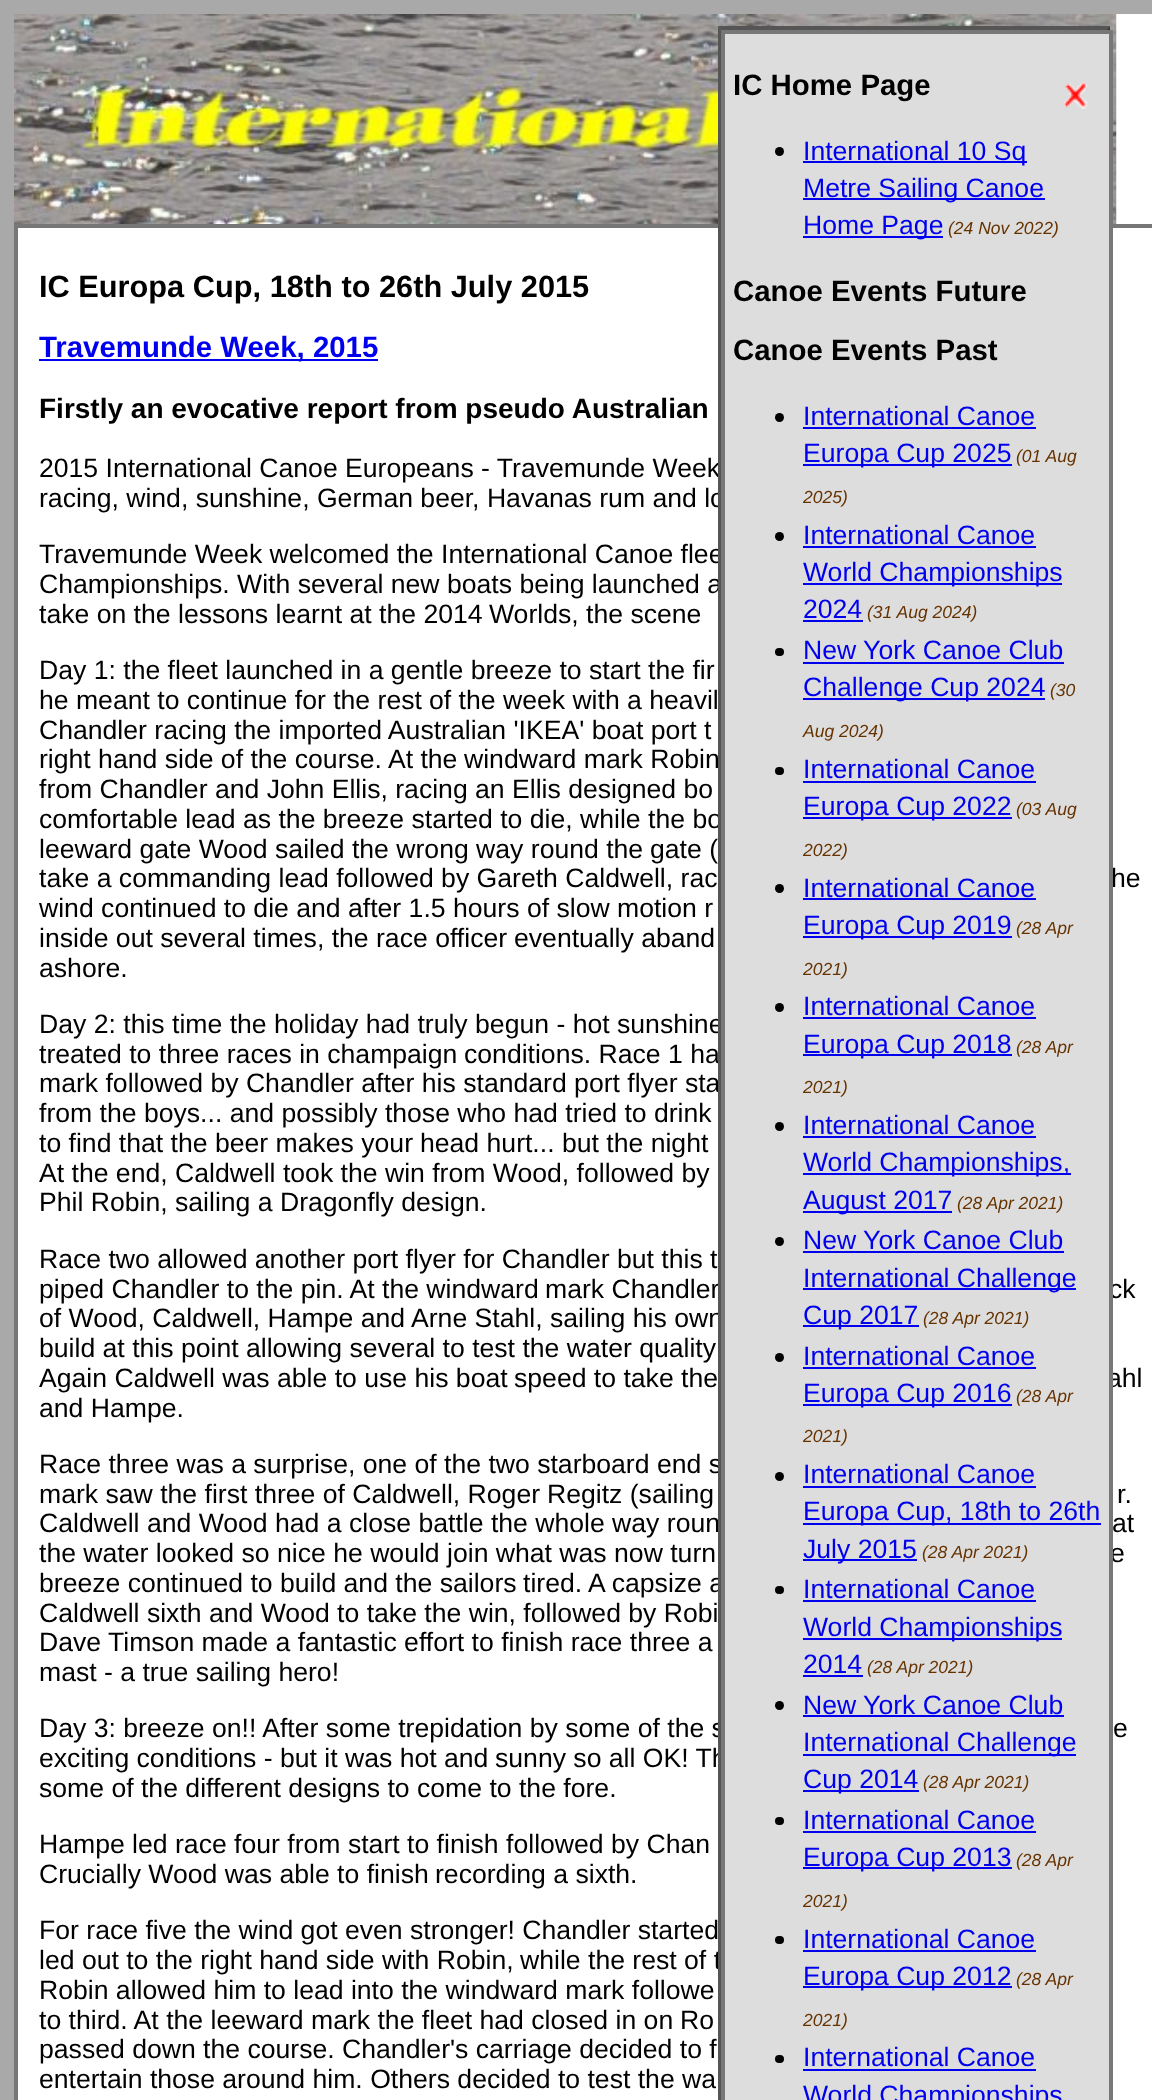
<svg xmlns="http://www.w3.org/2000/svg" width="1152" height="2100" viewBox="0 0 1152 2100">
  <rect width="100%" height="100%" fill="#a9a9a9"/>
  <path d="M18 14h1134v2086H18z" fill="#fff"/>
  <image x="14" y="14" width="1103" height="210" href="img/2.png"/>
  <path d="M718 26H1110L1106 30H721Z" fill="#555"/>
  <path d="M16 226h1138v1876H16z" fill="none" stroke="#777" stroke-width="4"/>
  <path d="M39 359h339v2H39z" fill="#00e"/>
  <text x="39" y="297" font-family="Liberation Sans" font-size="30.75" font-weight="bold" fill="#000">IC Europa Cup, 18th to 26th July 2015</text>
  <text x="39" y="357" font-family="Liberation Sans" font-size="29.4" font-weight="bold" fill="#00e">Travemunde Week, 2015</text>
  <text x="39" y="418" font-family="Liberation Sans" font-size="28" font-weight="bold" fill="#000">Firstly an evocative report from pseudo Australian</text>
  <g font-family="Liberation Sans" font-size="26.6" fill="#000">
    <text x="39" y="477">2015 International Canoe Europeans - Travemunde Week</text>
    <text x="39" y="507">racing, wind, sunshine, German beer, Havanas rum and lo</text>
    <text x="39" y="563">Travemunde Week welcomed the International Canoe flee</text>
    <text x="39" y="593">Championships. With several new boats being launched a</text>
    <text x="39" y="623">take on the lessons learnt at the 2014</text>
    <text x="489" y="623">Worlds, the scene</text>
    <text x="39" y="679">Day 1: the fleet launched in a gentle breeze to start the fir</text>
    <text x="39" y="709">he meant to continue for the rest</text>
    <text x="429" y="709">of the week with a heavil</text>
    <text x="39" y="739">Chandler racing the imported Australian 'IKEA' boat port t</text>
    <text x="39" y="768">right hand side of the course. At the</text>
    <text x="464" y="768">windward mark Robin</text>
    <text x="39" y="798">from Chandler and John Ellis, racing an Ellis designed bo</text>
    <text x="39" y="828">comfortable lead as the breeze started to die, while the bo</text>
    <text x="39" y="858">leeward gate Wood sailed the wrong way round the</text>
    <text x="650" y="858">gate (</text>
    <text x="39" y="887">take a commanding lead followed by Gareth Caldwell, rac</text>
    <text x="1111" y="887">he</text>
    <text x="39" y="917">wind continued to die and after 1.5 hours of slow motion r</text>
    <text x="39" y="947">inside out several times, the race officer</text>
    <text x="514" y="947">eventually aband</text>
    <text x="39" y="977">ashore.</text>
    <text x="39" y="1033">Day 2: this time the holiday had truly begun - hot sunshine</text>
    <text x="39" y="1063">treated to three races in champaign</text>
    <text x="464" y="1063">conditions. Race 1 ha</text>
    <text x="39" y="1092">mark followed by Chandler after his standard port flyer sta</text>
    <text x="39" y="1122">from the boys... and possibly those who had tried to drink</text>
    <text x="39" y="1152">to find that the beer makes your</text>
    <text x="420" y="1152">head hurt... but the night</text>
    <text x="39" y="1182">At the end, Caldwell took the win from Wood, followed by</text>
    <text x="39" y="1211">Phil Robin, sailing a Dragonfly design.</text>
    <text x="39" y="1268">Race two allowed another port flyer for Chandler but this t</text>
    <text x="39" y="1298">piped Chandler to the pin. At the windward</text>
    <text x="545" y="1298">mark Chandler</text>
    <text x="1109" y="1298">ck</text>
    <text x="39" y="1327">of Wood, Caldwell, Hampe and Arne Stahl, sailing his own</text>
    <text x="39" y="1357">build at this point allowing several to test the water quality</text>
    <text x="39" y="1387">Again Caldwell was able to use his boat</text>
    <text x="514" y="1387">speed to take the</text>
    <text x="1107" y="1387">ahl</text>
  </g>
  <path d="M1110 26V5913L1106 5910V30Z" fill="#393939"/>
  <g font-family="Liberation Sans" font-size="26.6" fill="#000">
    <text x="39" y="1417">and Hampe.</text>
    <text x="39" y="1473">Race three was a surprise, one of the two starboard end s</text>
    <text x="39" y="1503">mark saw the first three of Caldwell, Roger</text>
    <text x="547" y="1503">Regitz (sailing</text>
    <text x="1117" y="1503">r.</text>
    <text x="39" y="1532">Caldwell and Wood had a close battle the whole way roun</text>
    <text x="1112" y="1532">at</text>
    <text x="39" y="1562">the water looked so nice he would join what was now turn</text>
    <text x="1110" y="1562">e</text>
    <text x="39" y="1592">breeze continued to build and the sailors</text>
    <text x="523" y="1592">tired. A capsize a</text>
    <text x="39" y="1622">Caldwell sixth and Wood to take the win, followed by Robi</text>
    <text x="39" y="1651">Dave Timson made a fantastic effort to finish race three a</text>
    <text x="39" y="1681">mast - a true sailing hero!</text>
    <text x="39" y="1737">Day 3: breeze on!! After some trepidation by some of the s</text>
    <text x="1113" y="1737">e</text>
    <text x="39" y="1767">exciting conditions - but it was hot and</text>
    <text x="495" y="1767">sunny so all OK! Th</text>
    <text x="39" y="1797">some of the different designs to come to the fore.</text>
    <text x="39" y="1853">Hampe led race four from start to finish followed by Chan</text>
    <text x="39" y="1883">Crucially Wood was able to finish</text>
    <text x="435" y="1883">recording a sixth.</text>
    <text x="39" y="1939">For race five the wind got even stronger! Chandler started</text>
    <text x="39" y="1969">led out to the right hand side with Robin,</text>
    <text x="520" y="1969">while the rest of t</text>
  </g>
  <path d="M723 32h388v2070H723z" fill="#ddd" stroke="#777" stroke-width="4"/>
  <g font-family="Liberation Sans" font-size="26.6" fill="#00e">
    <text x="803" y="2104">World Championships</text>
    <text x="803" y="2066">International Canoe</text>
  </g>
  <path d="M803 2069h233v2H803z" fill="#00e"/>
  <rect x="775" y="2055" width="9" height="8" rx="4" fill="#000"/>
  <g font-family="Liberation Sans" font-size="17.5" font-style="italic" fill="#630">
    <text x="803" y="2026">2021)</text>
    <text x="1016" y="1985">(28 Apr</text>
  </g>
  <path d="M803 1986h209v2H803z" fill="#00e"/>
  <g font-family="Liberation Sans" font-size="26.6" fill="#00e">
    <text x="803" y="1985">Europa Cup 2012</text>
    <text x="803" y="1948">International Canoe</text>
  </g>
  <path d="M803 1950h233v2H803z" fill="#00e"/>
  <rect x="775" y="1936" width="9" height="8" rx="4" fill="#000"/>
  <g font-family="Liberation Sans" font-size="17.5" font-style="italic" fill="#630">
    <text x="803" y="1907">2021)</text>
    <text x="1016" y="1866">(28 Apr</text>
  </g>
  <path d="M803 1867h209v2H803z" fill="#00e"/>
  <g font-family="Liberation Sans" font-size="26.6" fill="#00e">
    <text x="803" y="1866">Europa Cup 2013</text>
    <text x="803" y="1829">International Canoe</text>
  </g>
  <path d="M803 1831h233v2H803z" fill="#00e"/>
  <rect x="775" y="1817" width="9" height="8" rx="4" fill="#000"/>
  <text x="923" y="1788" font-family="Liberation Sans" font-size="17.5" font-style="italic" fill="#630">(28 Apr 2021)</text>
  <path d="M803 1790h116v2H803z" fill="#00e"/>
  <text x="803" y="1788" font-family="Liberation Sans" font-size="26.6" fill="#00e">Cup 2014</text>
  <path d="M803 1754h273v2H803z" fill="#00e"/>
  <g font-family="Liberation Sans" font-size="26.6" fill="#00e">
    <text x="803" y="1751">International Challenge</text>
    <text x="803" y="1714">New York Canoe Club</text>
  </g>
  <path d="M803 1715h261v2H803z" fill="#00e"/>
  <circle cx="779.5" cy="1705.5" r="4.5" fill="#000"/>
  <text x="867" y="1673" font-family="Liberation Sans" font-size="17.5" font-style="italic" fill="#630">(28 Apr 2021)</text>
  <text x="803" y="1673" font-family="Liberation Sans" font-size="26.6" fill="#00e">2014</text>
  <path d="M803 1675h60v2H803z" fill="#00e"/>
  <path d="M803 1638h259v2H803z" fill="#00e"/>
  <g font-family="Liberation Sans" font-size="26.6" fill="#00e">
    <text x="803" y="1636">World Championships</text>
    <text x="803" y="1598">International Canoe</text>
  </g>
  <path d="M803 1600h233v2H803z" fill="#00e"/>
  <rect x="775" y="1586" width="9" height="8" rx="4" fill="#000"/>
  <text x="922" y="1558" font-family="Liberation Sans" font-size="17.5" font-style="italic" fill="#630">(28 Apr 2021)</text>
  <path d="M803 1559h114v2H803z" fill="#00e"/>
  <text x="803" y="1558" font-family="Liberation Sans" font-size="26.6" fill="#00e">July 2015</text>
  <path d="M803 1523h298v2H803z" fill="#00e"/>
  <g font-family="Liberation Sans" font-size="26.6" fill="#00e">
    <text x="803" y="1520">Europa Cup, 18th to 26th</text>
    <text x="803" y="1483">International Canoe</text>
  </g>
  <path d="M803 1486h233v2H803z" fill="#00e"/>
  <circle cx="779.5" cy="1476.5" r="4.5" fill="#000"/>
  <g font-family="Liberation Sans" font-size="17.5" font-style="italic" fill="#630">
    <text x="803" y="1442">2021)</text>
    <text x="1016" y="1402">(28 Apr</text>
  </g>
  <path d="M803 1404h209v2H803z" fill="#00e"/>
  <g font-family="Liberation Sans" font-size="26.6" fill="#00e">
    <text x="803" y="1402">Europa Cup 2016</text>
    <text x="803" y="1365">International Canoe</text>
  </g>
  <path d="M803 1367h233v2H803z" fill="#00e"/>
  <circle cx="779.5" cy="1357.5" r="4.5" fill="#000"/>
  <text x="923" y="1324" font-family="Liberation Sans" font-size="17.5" font-style="italic" fill="#630">(28 Apr 2021)</text>
  <path d="M803 1325h116v2H803z" fill="#00e"/>
  <text x="803" y="1324" font-family="Liberation Sans" font-size="26.6" fill="#00e">Cup 2017</text>
  <path d="M803 1288h273v2H803z" fill="#00e"/>
  <g font-family="Liberation Sans" font-size="26.6" fill="#00e">
    <text x="803" y="1287">International Challenge</text>
    <text x="803" y="1249">New York Canoe Club</text>
  </g>
  <path d="M803 1251h261v2H803z" fill="#00e"/>
  <circle cx="779.5" cy="1241.5" r="4.5" fill="#000"/>
  <text x="957" y="1209" font-family="Liberation Sans" font-size="17.5" font-style="italic" fill="#630">(28 Apr 2021)</text>
  <path d="M803 1211h149v2H803z" fill="#00e"/>
  <text x="803" y="1209" font-family="Liberation Sans" font-size="26.6" fill="#00e">August 2017</text>
  <path d="M803 1173h268v2H803z" fill="#00e"/>
  <g font-family="Liberation Sans" font-size="26.6" fill="#00e">
    <text x="803" y="1171">World Championships,</text>
    <text x="803" y="1134">International Canoe</text>
  </g>
  <path d="M803 1136h233v2H803z" fill="#00e"/>
  <circle cx="779.5" cy="1126.5" r="4.5" fill="#000"/>
  <g font-family="Liberation Sans" font-size="17.5" font-style="italic" fill="#630">
    <text x="803" y="1093">2021)</text>
    <text x="1016" y="1053">(28 Apr</text>
  </g>
  <path d="M803 1054h209v2H803z" fill="#00e"/>
  <g font-family="Liberation Sans" font-size="26.6" fill="#00e">
    <text x="803" y="1053">Europa Cup 2018</text>
    <text x="803" y="1015">International Canoe</text>
  </g>
  <path d="M803 1017h233v2H803z" fill="#00e"/>
  <circle cx="779.5" cy="1007.5" r="4.5" fill="#000"/>
  <g font-family="Liberation Sans" font-size="17.5" font-style="italic" fill="#630">
    <text x="803" y="975">2021)</text>
    <text x="1016" y="934">(28 Apr</text>
  </g>
  <path d="M803 936h209v2H803z" fill="#00e"/>
  <g font-family="Liberation Sans" font-size="26.6" fill="#00e">
    <text x="803" y="934">Europa Cup 2019</text>
    <text x="803" y="897">International Canoe</text>
  </g>
  <path d="M803 898h233v2H803z" fill="#00e"/>
  <circle cx="779.5" cy="888.5" r="4.5" fill="#000"/>
  <g font-family="Liberation Sans" font-size="17.5" font-style="italic" fill="#630">
    <text x="803" y="856">2022)</text>
    <text x="1016" y="815">(03 Aug</text>
  </g>
  <path d="M803 817h209v2H803z" fill="#00e"/>
  <g font-family="Liberation Sans" font-size="26.6" fill="#00e">
    <text x="803" y="815">Europa Cup 2022</text>
    <text x="803" y="778">International Canoe</text>
  </g>
  <path d="M803 781h233v2H803z" fill="#00e"/>
  <rect x="775" y="767" width="9" height="8" rx="4" fill="#000"/>
  <g font-family="Liberation Sans" font-size="17.5" font-style="italic" fill="#630">
    <text x="803" y="737">Aug 2024)</text>
    <text x="1050" y="696">(30</text>
  </g>
  <path d="M803 698h242v2H803z" fill="#00e"/>
  <g font-family="Liberation Sans" font-size="26.6" fill="#00e">
    <text x="803" y="696">Challenge Cup 2024</text>
    <text x="803" y="659">New York Canoe Club</text>
  </g>
  <path d="M803 662h261v2H803z" fill="#00e"/>
  <rect x="775" y="648" width="9" height="8" rx="4" fill="#000"/>
  <text x="867" y="618" font-family="Liberation Sans" font-size="17.5" font-style="italic" fill="#630">(31 Aug 2024)</text>
  <text x="803" y="618" font-family="Liberation Sans" font-size="26.6" fill="#00e">2024</text>
  <path d="M803 620h60v2H803z" fill="#00e"/>
  <path d="M803 583h259v2H803z" fill="#00e"/>
  <g font-family="Liberation Sans" font-size="26.6" fill="#00e">
    <text x="803" y="581">World Championships</text>
    <text x="803" y="544">International Canoe</text>
  </g>
  <path d="M803 546h233v2H803z" fill="#00e"/>
  <circle cx="779.5" cy="536.5" r="4.5" fill="#000"/>
  <g font-family="Liberation Sans" font-size="17.5" font-style="italic" fill="#630">
    <text x="803" y="503">2025)</text>
    <text x="1016" y="462">(01 Aug</text>
  </g>
  <path d="M803 464h209v2H803z" fill="#00e"/>
  <g font-family="Liberation Sans" font-size="26.6" fill="#00e">
    <text x="803" y="462">Europa Cup 2025</text>
    <text x="803" y="425">International Canoe</text>
  </g>
  <path d="M803 427h233v2H803z" fill="#00e"/>
  <circle cx="779.5" cy="417.5" r="4.5" fill="#000"/>
  <g font-family="Liberation Sans" font-size="29.4" font-weight="bold" fill="#000">
    <text x="733" y="360">Canoe Events Past</text>
    <text x="733" y="301">Canoe Events Future</text>
  </g>
  <text x="948" y="234" font-family="Liberation Sans" font-size="17.5" font-style="italic" fill="#630">(24 Nov 2022)</text>
  <path d="M803 236h140v2H803z" fill="#00e"/>
  <text x="803" y="234" font-family="Liberation Sans" font-size="26.6" fill="#00e">Home Page</text>
  <path d="M803 198h242v2H803z" fill="#00e"/>
  <text x="803" y="197" font-family="Liberation Sans" font-size="26.6" fill="#00e">Metre Sailing Canoe</text>
  <path d="M803 161h224v2H803z" fill="#00e"/>
  <text x="803" y="160" font-family="Liberation Sans" font-size="26.6" fill="#00e">International 10 Sq</text>
  <circle cx="779.5" cy="151.5" r="4.5" fill="#000"/>
  <text x="733" y="95" font-family="Liberation Sans" font-size="29.4" font-weight="bold" fill="#000">IC Home Page</text>
  <image x="1063" y="82" width="25" height="27" href="img/1.png"/>
  <path d="M718 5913V26L721 30V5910Z" fill="#555"/>
  <g font-family="Liberation Sans" font-size="26.6" fill="#000">
    <text x="39" y="1999">Robin allowed him to lead into the windward mark followe</text>
    <text x="39" y="2029">to third. At the leeward mark the fleet had closed in on</text>
    <text x="680" y="2029">Ro</text>
    <text x="39" y="2058">passed down the course. Chandler's carriage decided to f</text>
    <text x="39" y="2088">entertain those around him. Others decided to test the wa</text>
  </g>
</svg>
